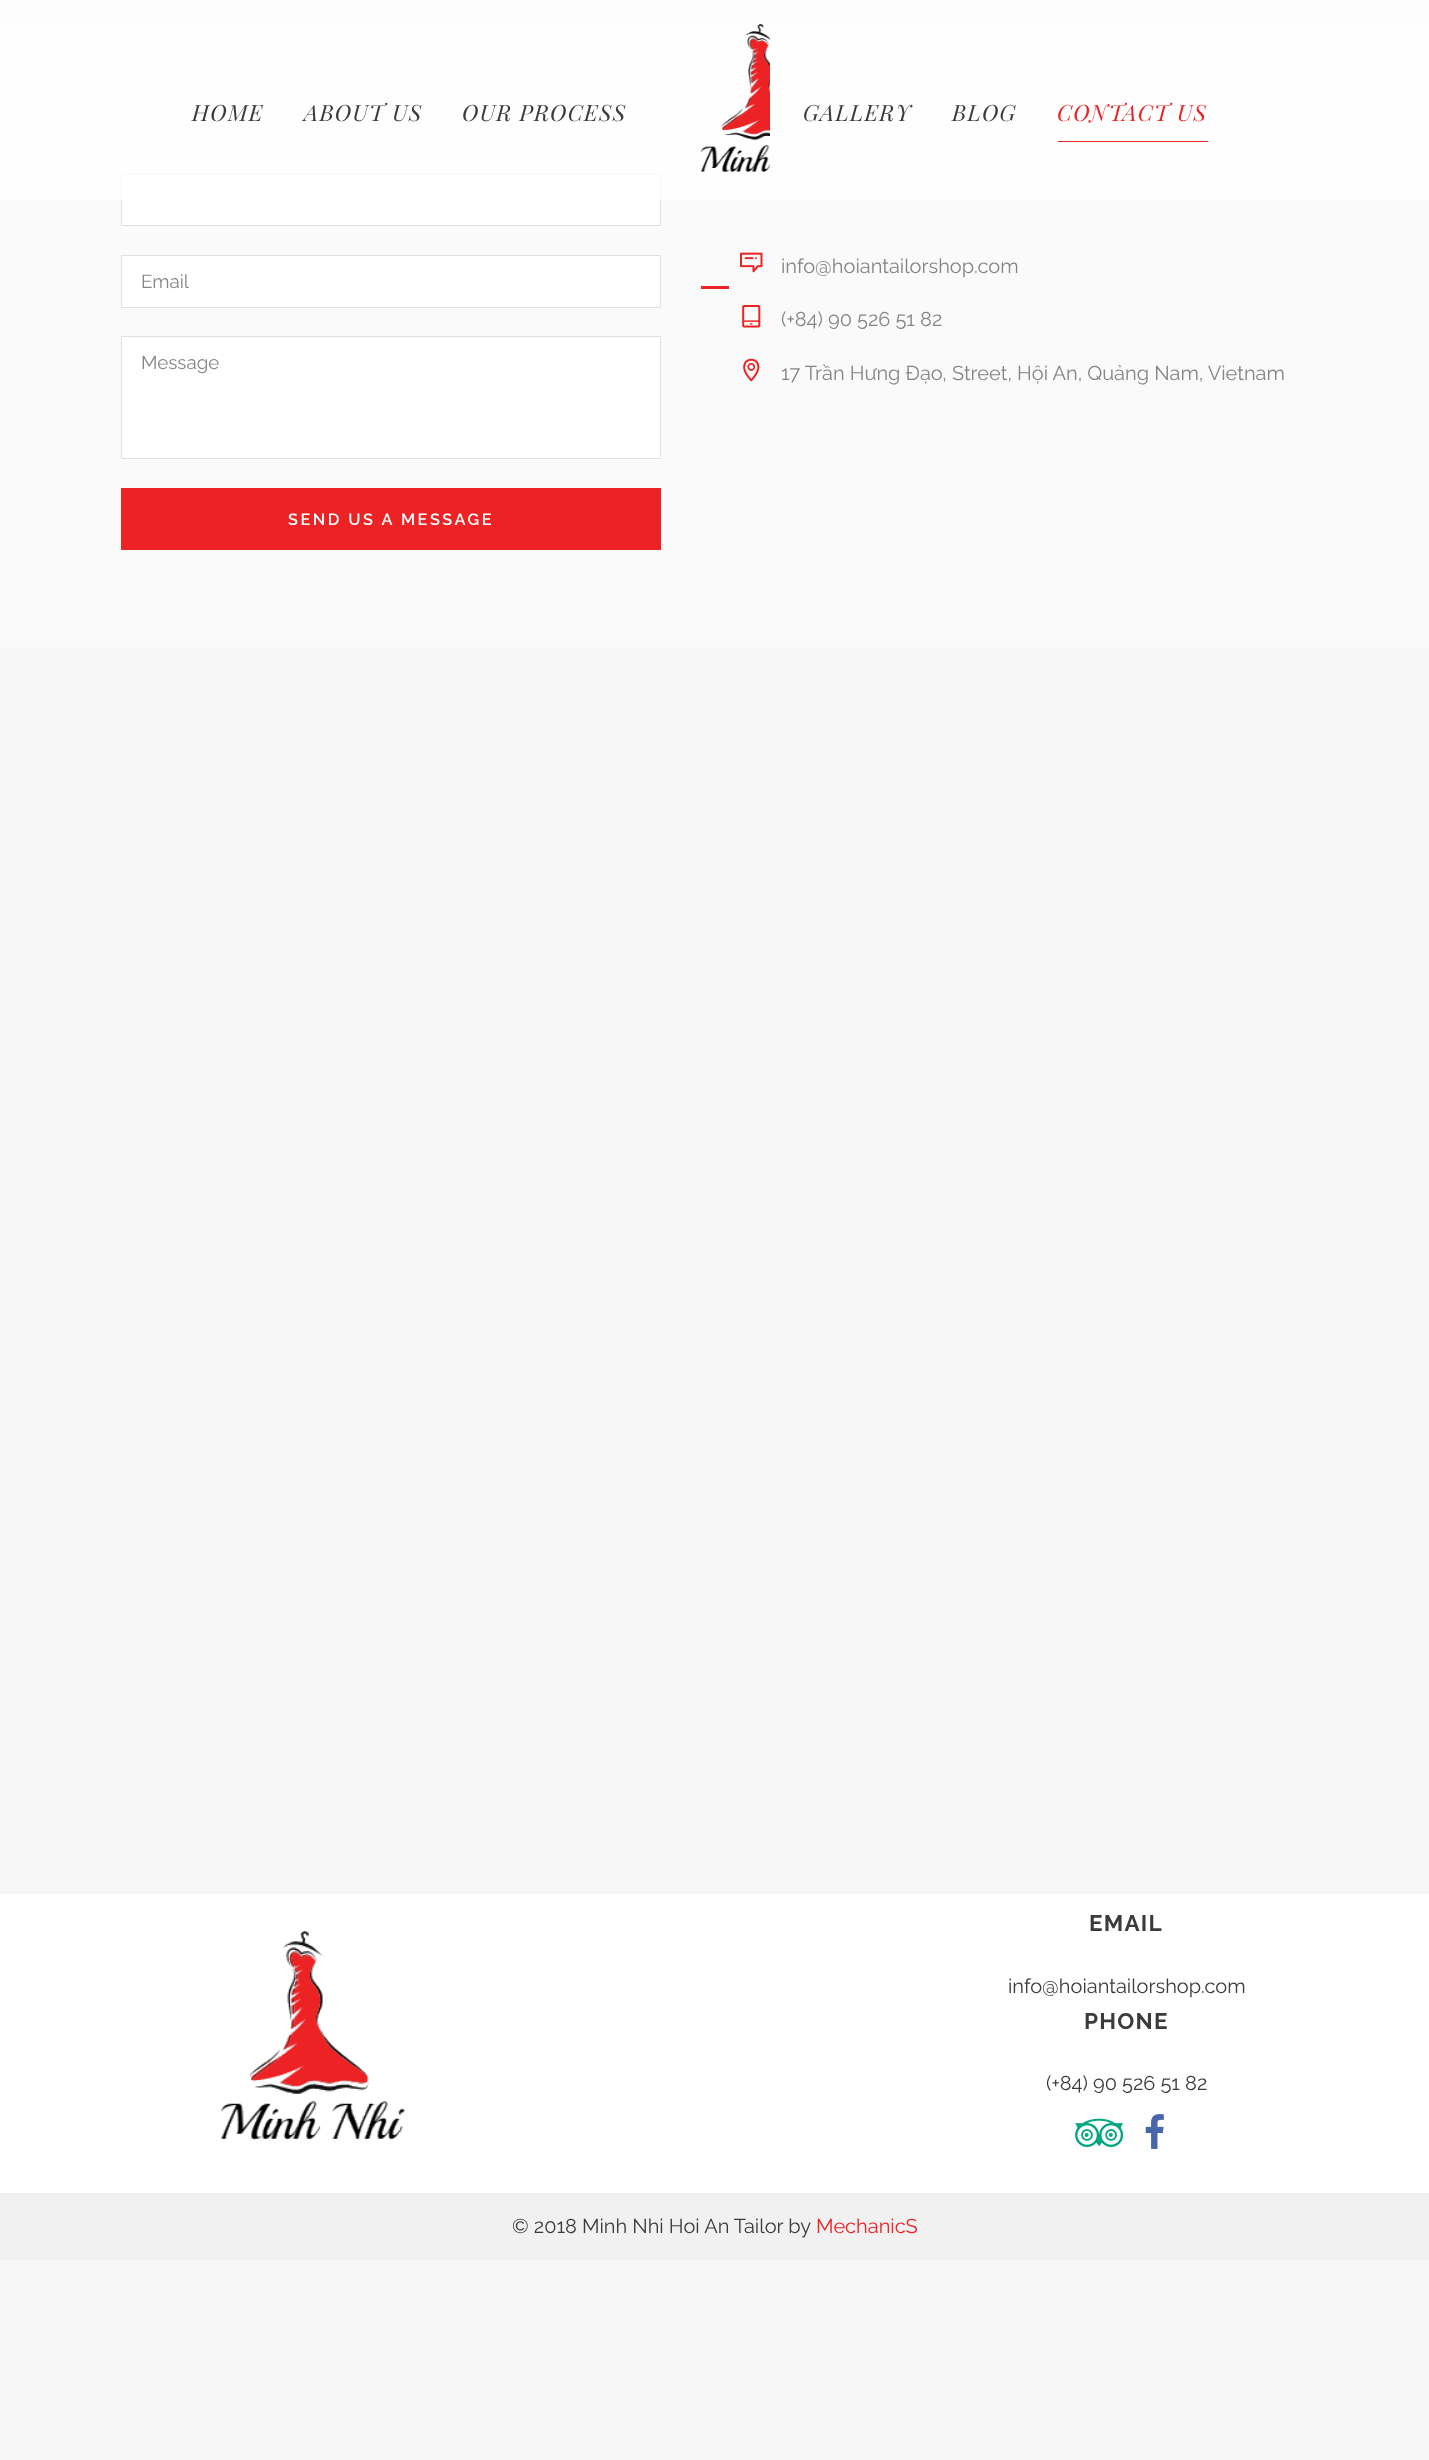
<svg xmlns="http://www.w3.org/2000/svg" width="1429" height="2460" viewBox="0 0 1429 2460">
  <rect width="100%" height="100%" fill="#f6f6f6"/>
  <path d="M0 24h1429v624H0z" fill="#fafafa"/>
  <path d="M121.5 174.5h539v51H121.5z" fill="#fff" stroke="#e1e1e1"/>
  <path d="M0 0h1429v200H0z" fill="#ffffffbf"/>
  <image x="700" y="24" width="70" height="149" href="img/1.png"/>
  <path d="M1058 141h150v1H1058z" fill="#ed2224"/>
  <path d="M121.5 255.5h539v52H121.5z" fill="#fff" stroke="#e1e1e1"/>
  <path d="M121.5 336.5h539v122H121.5z" fill="#fff" stroke="#e1e1e1"/>
  <path d="M121 488h540v62H121z" fill="#ed2224"/>
  <image x="740" y="252" width="23" height="21" href="img/2.png"/>
  <image x="742" y="305" width="19" height="23" href="img/3.png"/>
  <image x="743" y="358" width="17" height="24" href="img/4.png"/>
  <path d="M701 286h28v3H701z" fill="#ed2224"/>
  <path d="M0 1894h1429v299H0z" fill="#fff"/>
  <image x="221" y="1931" width="185" height="210" href="img/5.png"/>
  <image x="1075" y="2118" width="49" height="29" href="img/6.png"/>
  <image x="1145" y="2114" width="19" height="35" href="img/7.png"/>
  <path d="M0 2193h1429v67H0z" fill="#f1f1f1"/>
  <g font-family="Playfair Display" font-size="22.5" font-style="italic" letter-spacing="1.25" fill="#3b3b3b">
    <text x="192" y="121">HOME</text>
    <text x="304" y="121">ABOUT US</text>
    <text x="462" y="121">OUR PROCESS</text>
    <text x="803" y="121">GALLERY</text>
    <text x="952" y="121">BLOG</text>
  </g>
  <text x="1057" y="121" font-family="Playfair Display" font-size="22.5" font-style="italic" letter-spacing="1.25" fill="#ed2224">CONTACT US</text>
  <g font-family="Raleway" font-size="18.75" fill="#858585">
    <text x="141" y="288">Email</text>
    <text x="141" y="369">Message</text>
  </g>
  <text x="288" y="525" font-family="Raleway" font-size="16.25" font-weight="600" letter-spacing="2.5" fill="#fff">SEND US A MESSAGE</text>
  <g font-family="Raleway" font-size="20" fill="#858585">
    <text x="781" y="273">info@hoiantailorshop.com</text>
    <text x="781" y="326">(+84) 90 526 51 82</text>
    <text x="781" y="380">17 Trần Hưng Đạo, Street, Hội An, Quảng Nam, Vietnam</text>
  </g>
  <text x="1089" y="1931" font-family="Raleway" font-size="22.5" font-weight="bold" letter-spacing="1.25" fill="#3b3b3b">EMAIL</text>
  <text x="1008" y="1993" font-family="Raleway" font-size="20" fill="#3b3b3b">info@hoiantailorshop.com</text>
  <text x="1084" y="2029" font-family="Raleway" font-size="22.5" font-weight="bold" letter-spacing="1.25" fill="#3b3b3b">PHONE</text>
  <g font-family="Raleway" font-size="20" fill="#3b3b3b">
    <text x="1046" y="2090">(+84) 90 526 51 82</text>
    <text x="512" y="2233">© 2018 Minh Nhi Hoi An Tailor by</text>
  </g>
  <text x="816" y="2233" font-family="Raleway" font-size="20" fill="#ed2224">MechanicS</text>
</svg>
